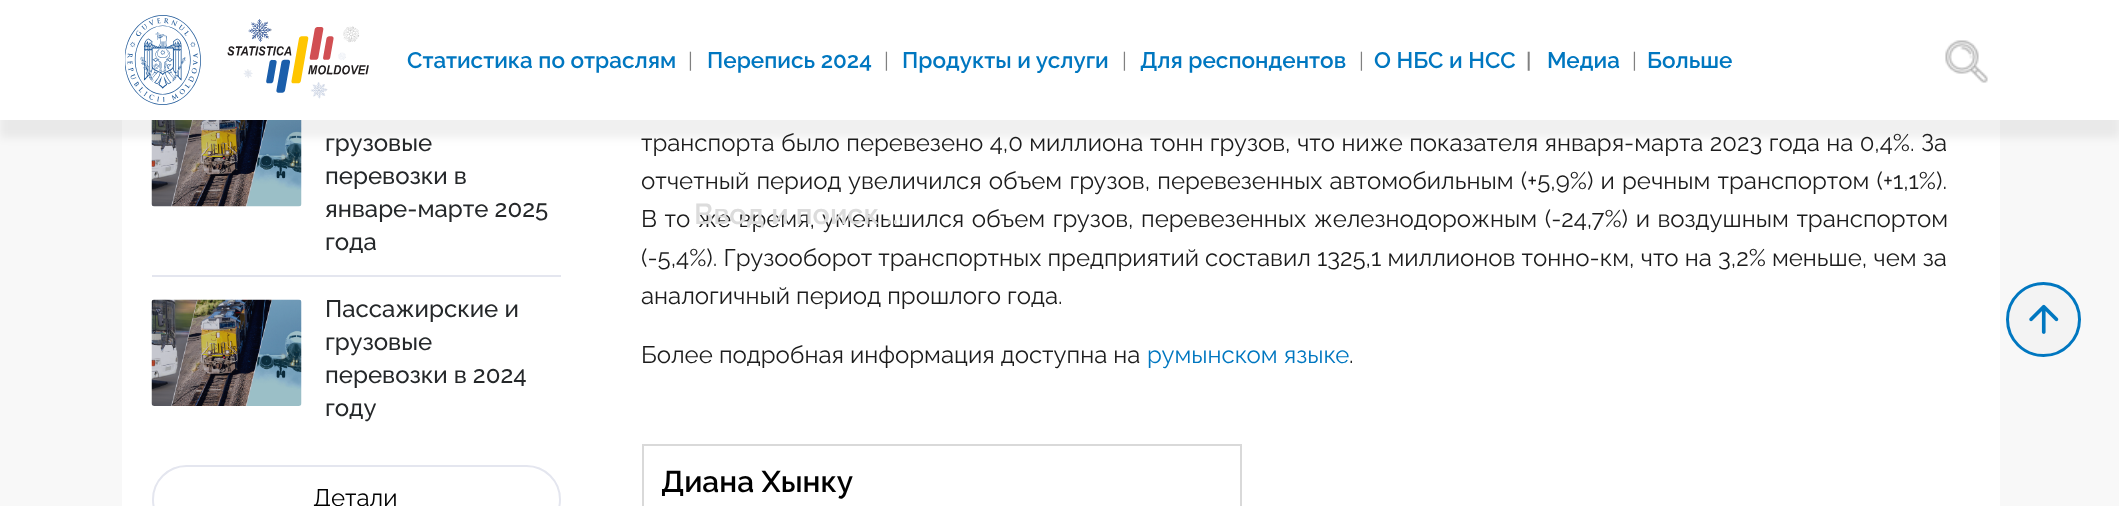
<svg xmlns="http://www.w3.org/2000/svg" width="2119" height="506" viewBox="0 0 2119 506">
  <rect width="100%" height="100%" fill="#f8f8f8"/>
  <path d="M122 120h1878v386H122z" fill="#fff"/>
  <image x="151" y="120" width="151" height="87" href="img/4.png"/>
  <path d="M0 18h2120v120H0z" fill="#0000000f" filter="blur(4.5px)"/>
  <path d="M0 0h2119v120H0z" fill="#fff"/>
  <image x="125" y="15" width="76" height="90" href="img/1.png"/>
  <image x="227" y="19" width="142" height="80" href="img/2.png"/>
  <image x="1945" y="40" width="43" height="43" href="img/3.png"/>
  <path d="M152 275h409v2H152z" fill="#e4e6ef"/>
  <image x="151" y="299" width="151" height="107" href="img/5.png"/>
  <rect x="153" y="466" width="407" height="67" rx="33.5" fill="none" stroke="#e4e6ef" stroke-width="2"/>
  <path d="M643 445h598v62H643z" fill="none" stroke="#d9d9d9" stroke-width="2"/>
  <circle cx="2043.5" cy="319.5" r="36" fill="#f3f3f3" stroke="#0077c0" stroke-width="3"/>
  <image x="2029" y="304" width="30" height="30" href="img/6.png"/>
  <text x="407" y="68" font-family="Raleway" font-size="22.5" font-weight="600" fill="#0077c0">Cтатистика по отраслям</text>
  <text x="688" y="68" font-family="Raleway" font-size="21" fill="#808080">|</text>
  <text x="707" y="68" font-family="Raleway" font-size="22.5" font-weight="600" fill="#0077c0">Перепись 2024</text>
  <text x="884" y="68" font-family="Raleway" font-size="21" fill="#808080">|</text>
  <text x="902" y="68" font-family="Raleway" font-size="22.5" font-weight="600" fill="#0077c0">Продукты и услуги</text>
  <text x="1122" y="68" font-family="Raleway" font-size="21" fill="#808080">|</text>
  <text x="1140" y="68" font-family="Raleway" font-size="22.5" font-weight="600" fill="#0077c0">Для респондентов</text>
  <text x="1359" y="68" font-family="Raleway" font-size="21" fill="#808080">|</text>
  <text x="1374" y="68" font-family="Raleway" font-size="22.5" font-weight="600" fill="#0077c0">О НБС и НСС</text>
  <text x="1526" y="68" font-family="Raleway" font-size="21" font-weight="600" fill="#808080">|</text>
  <text x="1547" y="68" font-family="Raleway" font-size="22.5" font-weight="600" fill="#0077c0">Медиа</text>
  <text x="1632" y="68" font-family="Raleway" font-size="21" fill="#808080">|</text>
  <text x="1647" y="68" font-family="Raleway" font-size="22.5" font-weight="600" fill="#0077c0">Больше</text>
  <g font-family="Raleway" font-size="24" font-weight="500" fill="#25282a">
    <text x="325" y="151">грузовые</text>
    <text x="325" y="184">перевозки в</text>
    <text x="325" y="217">январе-марте 2025</text>
    <text x="325" y="250">года</text>
    <text x="325" y="317">Пассажирские и</text>
    <text x="325" y="350">грузовые</text>
    <text x="325" y="383">перевозки в 2024</text>
    <text x="325" y="416">году</text>
  </g>
  <text x="313" y="506" font-family="Raleway" font-size="24" fill="#000">Детали</text>
  <g font-family="Raleway" font-size="24" fill="#1c1c1c">
    <text x="641" y="151" word-spacing="0.3">транспорта было перевезено 4,0 миллиона тонн грузов, что ниже показателя января-марта 2023 года на 0,4%. За</text>
    <text x="641" y="189" word-spacing="1.1">отчетный период увеличился объем грузов, перевезенных автомобильным (+5,9%) и речным транспортом (+1,1%).</text>
    <text x="641" y="227" word-spacing="1.5">В то же время, уменьшился объем грузов, перевезенных железнодорожным (-24,7%) и воздушным транспортом</text>
    <text x="641" y="266">(-5,4%). Грузооборот транспортных предприятий составил 1325,1 миллионов тонно-км, что на 3,2% меньше, чем за</text>
    <text x="641" y="304">аналогичный период прошлого года.</text>
    <text x="641" y="363">Более подробная информация доступна на</text>
  </g>
  <text x="1147" y="363" font-family="Raleway" font-size="24" fill="#0077c0">румынском языке</text>
  <text x="1349" y="363" font-family="Raleway" font-size="24" fill="#1c1c1c">.</text>
  <text x="661" y="492" font-family="Raleway" font-size="30" font-weight="600" fill="#000">Диана Хынку</text>
  <text x="694" y="224" font-family="Raleway" font-size="28.75" font-weight="600" fill="#dcdcdc">Ввод и поиск ...</text>
</svg>
